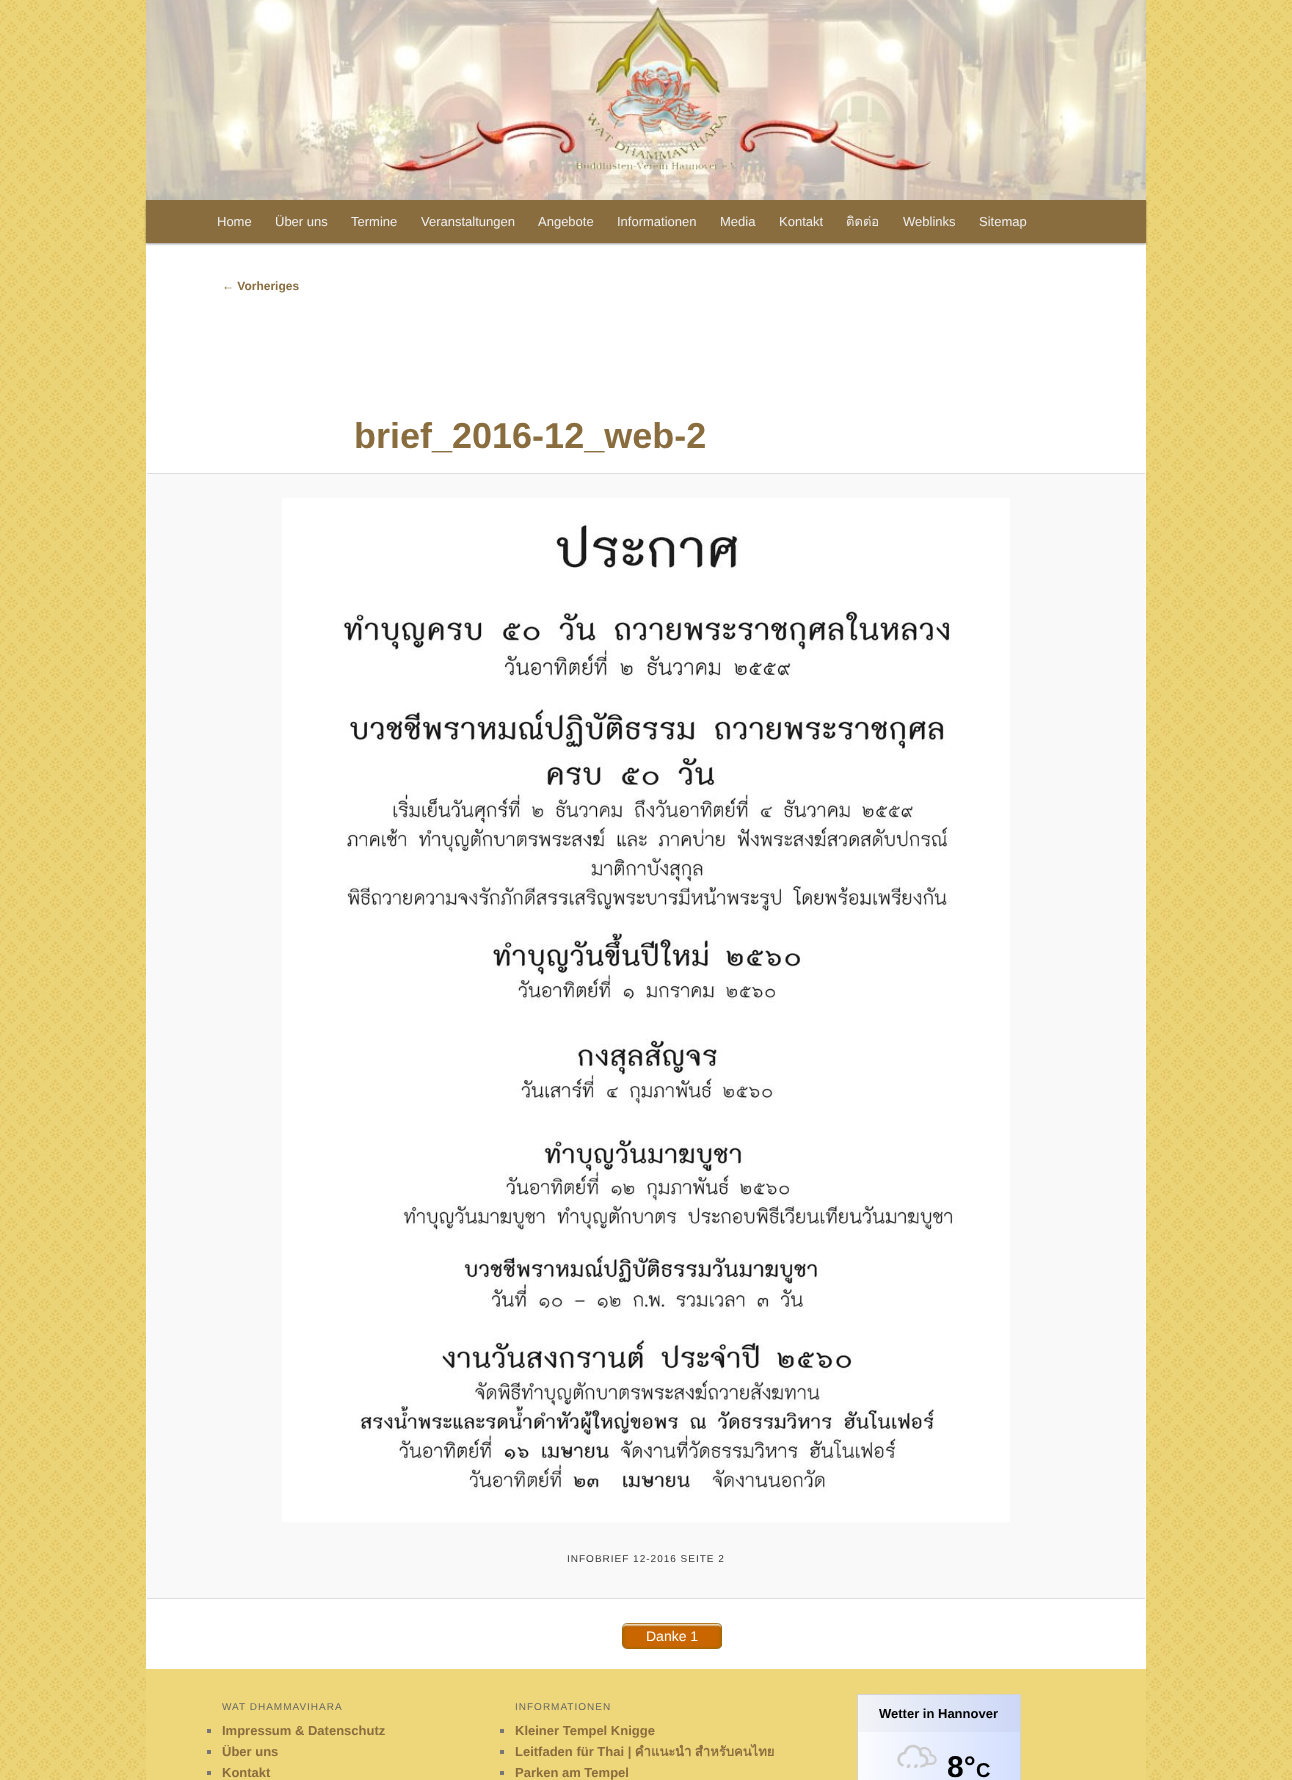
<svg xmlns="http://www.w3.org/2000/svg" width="1292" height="1780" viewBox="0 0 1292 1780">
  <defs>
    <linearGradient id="g1" gradientUnits="userSpaceOnUse" x1="1020" y1="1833" x2="858" y2="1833"><stop offset="0" stop-color="#d3dfff"/><stop offset="1" stop-color="#fbfcff"/></linearGradient>
  </defs>
  <rect width="100%" height="100%" fill="#fff"/>
  <image x="0" y="0" width="1292" height="1780" href="img/1.png"/>
  <path d="M146 243h1000v1426H146z" fill="#fff"/>
  <path d="M146 201h1000v43H146z" fill="#00000066" filter="blur(1px)"/>
  <image x="146" y="0" width="1000" height="200" href="img/2.png"/>
  <path d="M146 200h1000v43H146z" fill="#896d3f"/>
  <path d="M147 474h998v1124H147z" fill="#f9f9f9"/>
  <path d="M147 473h998v1H147z" fill="#ddd"/>
  <path d="M147 1598h998v1H147z" fill="#ddd"/>
  <image x="282" y="498" width="728" height="1024" href="img/3.png"/>
  <image x="622" y="1623" width="100" height="26" href="img/4.png"/>
  <path d="M146 1669h1000v111H146z" fill="#eed77a"/>
  <path d="M207 1729h4v4H207z" fill="#777"/>
  <path d="M207 1750h4v4H207z" fill="#777"/>
  <path d="M207 1771h4v4H207z" fill="#777"/>
  <path d="M500 1729h4v4H500z" fill="#777"/>
  <path d="M500 1750h4v4H500z" fill="#777"/>
  <path d="M500 1771h4v4H500z" fill="#777"/>
  <path d="M857.5 1694.5h163v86H857.5z" fill="none" stroke="#d3d3d3"/>
  <path d="M858 1695h162v85H858z" fill="url(#g1)"/>
  <path d="M858 1695h162v37H858z" fill="#00000008"/>
  <image x="897" y="1744" width="40" height="24" href="img/5.png"/>
  <g font-family="Liberation Sans" font-size="13" fill="#eee">
    <text x="217" y="226">Home</text>
    <text x="275" y="226">Über uns</text>
    <text x="351" y="226">Termine</text>
    <text x="421" y="226">Veranstaltungen</text>
    <text x="538" y="226">Angebote</text>
    <text x="617" y="226">Informationen</text>
    <text x="720" y="226">Media</text>
    <text x="779" y="226">Kontakt</text>
  </g>
  <text x="846" y="226" font-family="Loma" font-size="13" fill="#eee">ติดต่อ</text>
  <g font-family="Liberation Sans" font-size="13" fill="#eee">
    <text x="903" y="226">Weblinks</text>
    <text x="979" y="226">Sitemap</text>
  </g>
  <text x="222" y="290" font-family="Liberation Sans" font-size="12" font-weight="bold" fill="#896d3f">← Vorheriges</text>
  <text x="354" y="448" font-family="Liberation Sans" font-size="36" font-weight="bold" fill="#896d3f">brief_2016-12_web-2</text>
  <text x="567" y="1562" font-family="Liberation Sans" font-size="10" letter-spacing="1" fill="#373737">INFOBRIEF 12-2016 SEITE 2</text>
  <text x="646" y="1641" font-family="Liberation Sans" font-size="14" fill="#fff">Danke 1</text>
  <text x="222" y="1710" font-family="Liberation Sans" font-size="10" letter-spacing="1" fill="#666">WAT DHAMMAVIHARA</text>
  <g font-family="Liberation Sans" font-size="13" font-weight="bold" fill="#896d3f">
    <text x="222" y="1735">Impressum &amp; Datenschutz</text>
    <text x="222" y="1756">Über uns</text>
    <text x="222" y="1777">Kontakt</text>
  </g>
  <text x="515" y="1710" font-family="Liberation Sans" font-size="10" letter-spacing="1" fill="#666">INFORMATIONEN</text>
  <g font-family="Liberation Sans" font-size="13" font-weight="bold" fill="#896d3f">
    <text x="515" y="1735">Kleiner Tempel Knigge</text>
    <text x="515" y="1756">Leitfaden für Thai |</text>
  </g>
  <g font-family="Loma" font-size="13" font-weight="bold" fill="#896d3f">
    <text x="635" y="1756">คำแนะนำ</text>
    <text x="695" y="1756">สำหรับคนไทย</text>
  </g>
  <text x="515" y="1777" font-family="Liberation Sans" font-size="13" font-weight="bold" fill="#896d3f">Parken am Tempel</text>
  <text x="879" y="1718" font-family="Liberation Sans" font-size="13" font-weight="bold" fill="#000">Wetter in Hannover</text>
  <text x="947" y="1777" font-family="Liberation Sans" font-size="30" font-weight="bold" fill="#000">8°</text>
  <text x="976" y="1777" font-family="Liberation Sans" font-size="20" font-weight="bold" fill="#000">C</text>
</svg>
